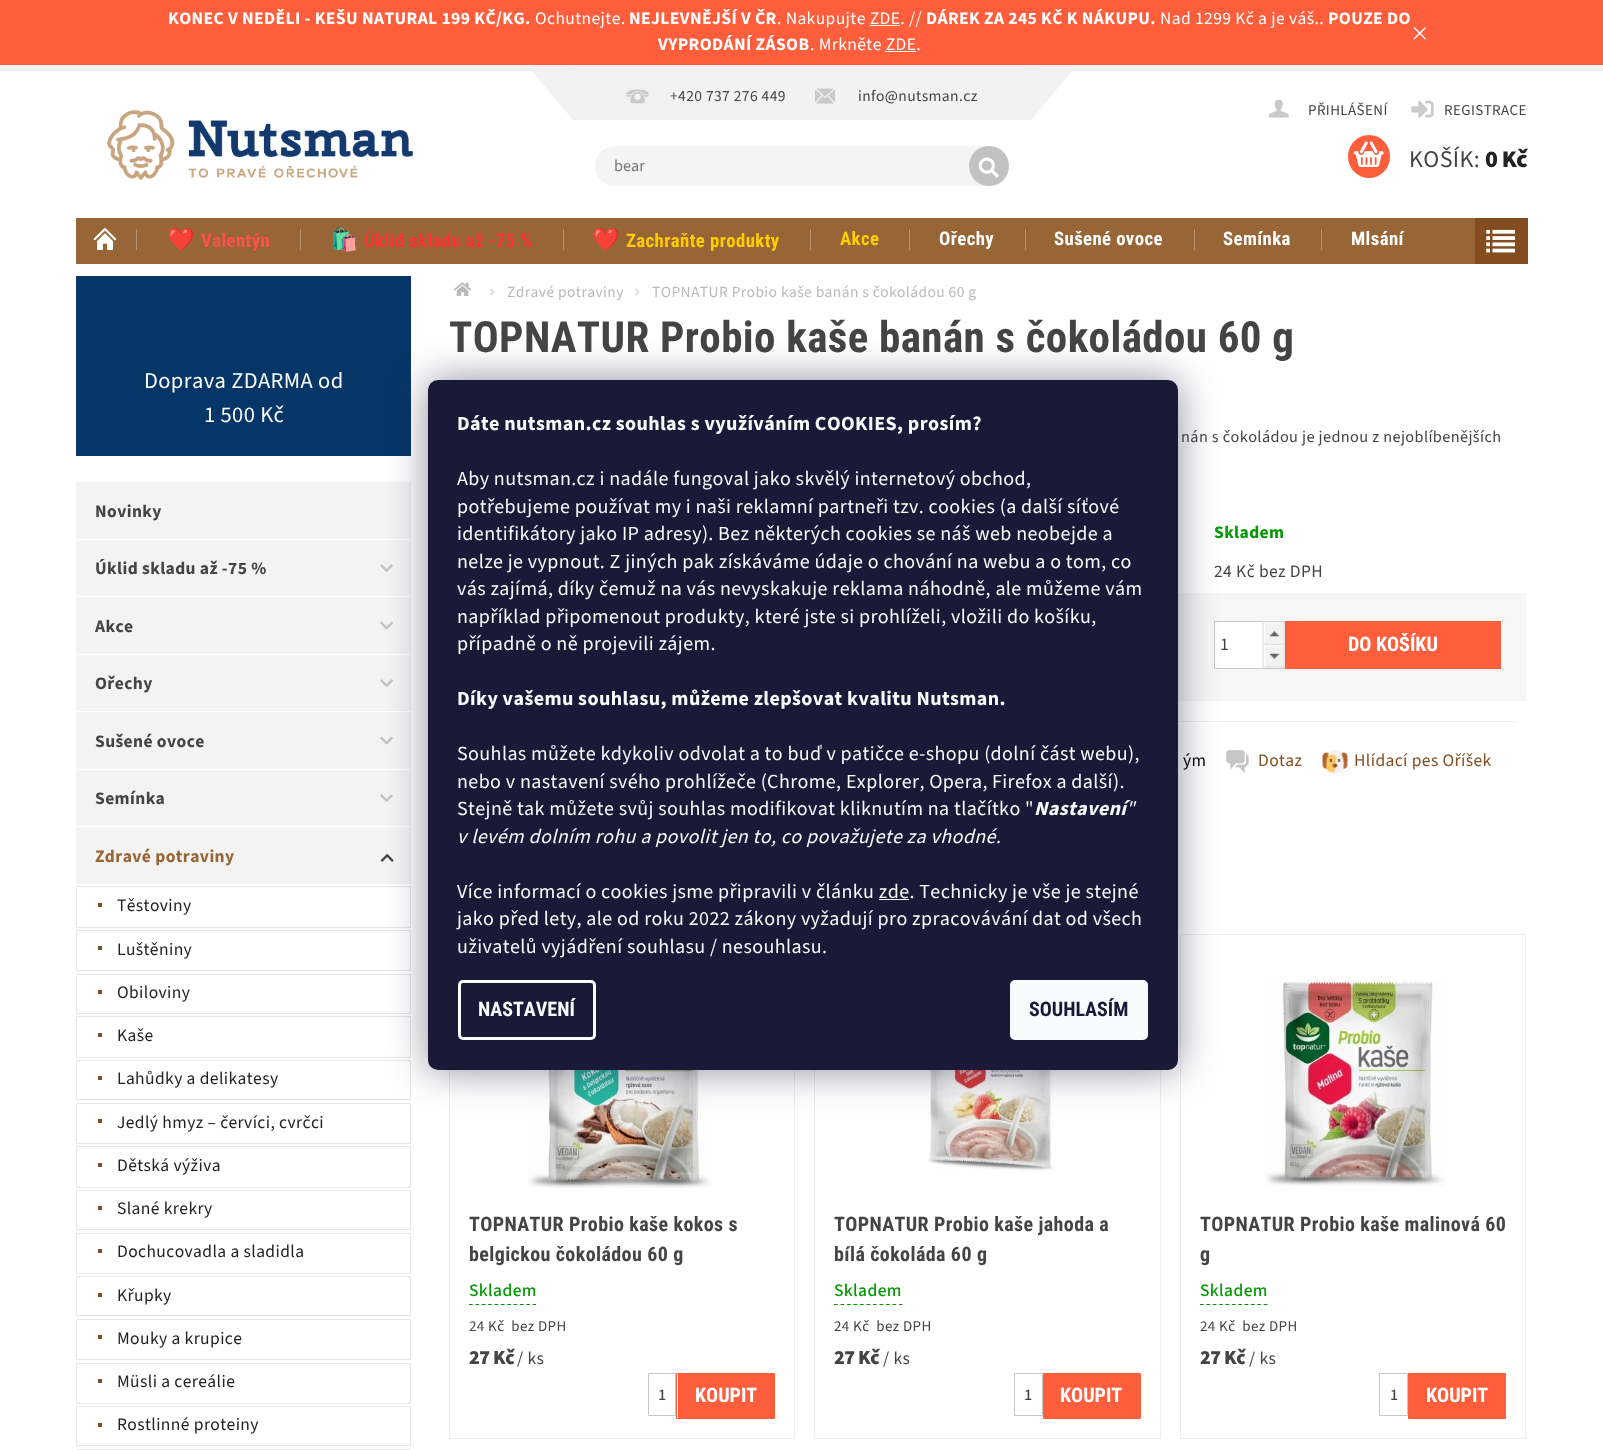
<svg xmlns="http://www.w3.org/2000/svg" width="1603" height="1450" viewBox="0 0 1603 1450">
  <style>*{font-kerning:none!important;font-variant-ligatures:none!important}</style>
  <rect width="100%" height="100%" fill="#fff"/>
  <path d="M0 0h1603v65H0z" fill="#ff5e3c"/>
  <path d="M870 25h30v1H870z" fill="#fff"/>
  <path d="M885 51h31v1H885z" fill="#fff"/>
  <path d="M1414.5 27L1426 38.5L1425 39.5L1413.5 28Z" fill="#fff"/>
  <path d="M1425 27L1426 28L1414.5 39.5L1413.5 38.5Z" fill="#fff"/>
  <path d="M0 65h1603v6H0z" fill="#f2f2f2"/>
  <image x="107" y="109" width="306" height="72" href="img/1.png"/>
  <path d="M573 71h458v49H573z" fill="#f2f2f2"/>
  <path d="M532 71H571L612 120H573Z" fill="#f2f2f2"/>
  <image x="626" y="89" width="23" height="15" href="img/2.png"/>
  <image x="815" y="88" width="20" height="16" href="img/3.png"/>
  <path d="M1033 71H1072L1031 120H992Z" fill="#f2f2f2"/>
  <rect x="595" y="146" width="414" height="40" rx="20" fill="#f4f4f4"/>
  <circle cx="989" cy="166" r="20" fill="#c2c2c2"/>
  <image x="978" y="157" width="21" height="21" href="img/4.png"/>
  <image x="1268" y="99" width="21" height="19" href="img/5.png"/>
  <image x="1411" y="100" width="23" height="18" href="img/6.png"/>
  <rect x="1348" y="135" width="42" height="43" rx="21" fill="#ff5e3c"/>
  <image x="1353" y="141" width="31" height="26" href="img/7.png"/>
  <path d="M76 218h1399v46H76z" fill="#986536"/>
  <image x="93" y="228" width="24" height="22" href="img/8.png"/>
  <path d="M136 229h1v21H136z" fill="#b79372"/>
  <path d="M300 229h1v21H300z" fill="#b79372"/>
  <path d="M563 229h1v21H563z" fill="#b79372"/>
  <path d="M810 229h1v21H810z" fill="#b79372"/>
  <path d="M909 229h1v21H909z" fill="#b79372"/>
  <path d="M1025 229h1v21H1025z" fill="#b79372"/>
  <path d="M1194 229h1v21H1194z" fill="#b79372"/>
  <path d="M1321 229h1v21H1321z" fill="#b79372"/>
  <path d="M1475 218h53v46H1475z" fill="#834d20"/>
  <image x="1486" y="229" width="29" height="24" href="img/9.png"/>
  <path d="M76 276h335v180H76z" fill="#063668"/>
  <path d="M76 482h335v57H76z" fill="#f3f3f3"/>
  <path d="M76 540h335v56H76z" fill="#f3f3f3"/>
  <image x="380" y="564" width="13" height="8" href="img/10.png"/>
  <path d="M76 597h335v57H76z" fill="#f3f3f3"/>
  <image x="380" y="621" width="13" height="9" href="img/11.png"/>
  <path d="M76 655h335v56H76z" fill="#f3f3f3"/>
  <image x="380" y="679" width="13" height="8" href="img/10.png"/>
  <path d="M76 712h335v57H76z" fill="#f3f3f3"/>
  <image x="380" y="736" width="13" height="9" href="img/11.png"/>
  <path d="M76 770h335v56H76z" fill="#f3f3f3"/>
  <image x="380" y="794" width="13" height="8" href="img/10.png"/>
  <path d="M76 827h335v57H76z" fill="#f3f3f3"/>
  <image x="380" y="854" width="14" height="8" href="img/12.png"/>
  <path d="M76.5 886.5h334v41H76.5z" fill="none" stroke="#e7e7e7"/>
  <path d="M98 903h4v4H98z" fill="#834d20"/>
  <path d="M76.5 930.5h334v40H76.5z" fill="none" stroke="#e7e7e7"/>
  <path d="M98 946h4v4H98z" fill="#834d20"/>
  <path d="M76.5 974.5h334v39H76.5z" fill="none" stroke="#e7e7e7"/>
  <path d="M98 990h4v4H98z" fill="#834d20"/>
  <path d="M76.5 1016.5h334v41H76.5z" fill="none" stroke="#e7e7e7"/>
  <path d="M98 1033h4v4H98z" fill="#834d20"/>
  <path d="M76.5 1060.5h334v39H76.5z" fill="none" stroke="#e7e7e7"/>
  <path d="M98 1076h4v4H98z" fill="#834d20"/>
  <path d="M76.5 1103.5h334v40H76.5z" fill="none" stroke="#e7e7e7"/>
  <path d="M98 1119h4v4H98z" fill="#834d20"/>
  <path d="M76.5 1146.5h334v41H76.5z" fill="none" stroke="#e7e7e7"/>
  <path d="M98 1163h4v4H98z" fill="#834d20"/>
  <path d="M76.5 1190.5h334v39H76.5z" fill="none" stroke="#e7e7e7"/>
  <path d="M98 1206h4v4H98z" fill="#834d20"/>
  <path d="M76.5 1233.5h334v40H76.5z" fill="none" stroke="#e7e7e7"/>
  <path d="M98 1249h4v4H98z" fill="#834d20"/>
  <path d="M76.5 1276.5h334v39H76.5z" fill="none" stroke="#e7e7e7"/>
  <path d="M98 1293h4v4H98z" fill="#834d20"/>
  <path d="M76.5 1319.5h334v40H76.5z" fill="none" stroke="#e7e7e7"/>
  <path d="M98 1335h4v4H98z" fill="#834d20"/>
  <path d="M76.5 1363.5h334v40H76.5z" fill="none" stroke="#e7e7e7"/>
  <path d="M98 1379h4v4H98z" fill="#834d20"/>
  <path d="M76.5 1406.5h334v39H76.5z" fill="none" stroke="#e7e7e7"/>
  <path d="M98 1423h4v4H98z" fill="#834d20"/>
  <path d="M76.5 1449.5h334v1H76.5z" fill="none" stroke="#e7e7e7"/>
  <image x="454" y="282" width="18" height="14" href="img/13.png"/>
  <image x="490" y="288" width="5" height="8" href="img/14.png"/>
  <image x="635" y="288" width="5" height="8" href="img/15.png"/>
  <path d="M1178 593h348v108H1178z" fill="#f6f6f6"/>
  <path d="M1214.5 621.5h70v47H1214.5z" fill="#fff" stroke="#c6c6c6"/>
  <image x="1262" y="621" width="23" height="23" href="img/16.png"/>
  <image x="1262" y="643" width="23" height="25" href="img/17.png"/>
  <path d="M1285 621h216v48H1285z" fill="#ff5e3c"/>
  <path d="M1178 721h337v1H1178z" fill="#ededed"/>
  <image x="1226" y="750" width="23" height="23" href="img/18.png"/>
  <image x="1322" y="750" width="26" height="24" href="img/19.png"/>
  <path d="M449.5 934.5h345v504H449.5z" fill="none" stroke="#ededed"/>
  <image x="528" y="1070" width="184" height="118" href="img/20.png"/>
  <path d="M469 1304.5H536" fill="none" stroke="#009901" stroke-width="1.2" stroke-dasharray="3.75 2.62"/>
  <path d="M648.5 1373.5h27v42H648.5z" fill="none" stroke="#c6c6c6"/>
  <path d="M676.5 1373.5h98v45H676.5z" fill="none" stroke="#ff5e3c"/>
  <path d="M678 1374h96v44H678z" fill="#ff5e3c"/>
  <path d="M814.5 934.5h346v504H814.5z" fill="none" stroke="#ededed"/>
  <image x="928" y="1070" width="126" height="101" href="img/21.png"/>
  <path d="M834 1304.5H902.5" fill="none" stroke="#009901" stroke-width="1.2" stroke-dasharray="3.75 2.75"/>
  <path d="M1014.5 1373.5h28v42H1014.5z" fill="none" stroke="#c6c6c6"/>
  <path d="M1043.5 1373.5h97v45H1043.5z" fill="none" stroke="#ff5e3c"/>
  <path d="M1044 1374h96v44H1044z" fill="#ff5e3c"/>
  <path d="M1180.5 934.5h345v504H1180.5z" fill="none" stroke="#ededed"/>
  <image x="1265" y="978" width="180" height="209" href="img/22.png"/>
  <path d="M1200 1304.5H1267.5" fill="none" stroke="#009901" stroke-width="1.2" stroke-dasharray="3.75 2.62"/>
  <path d="M1379.5 1373.5h28v42H1379.5z" fill="none" stroke="#c6c6c6"/>
  <path d="M1408.5 1373.5h97v45H1408.5z" fill="none" stroke="#ff5e3c"/>
  <path d="M1409 1374h96v44H1409z" fill="#ff5e3c"/>
  <rect x="428" y="380" width="750" height="690" rx="10" fill="#1b193980" filter="blur(19px)"/>
  <rect x="428" y="380" width="750" height="690" rx="10" fill="#1a1937"/>
  <path d="M879 899h30v1H879z" fill="#f8fafb"/>
  <rect x="459.5" y="981.5" width="135" height="57" rx="3.5" fill="none" stroke="#f8fafb" stroke-width="3"/>
  <rect x="1010" y="980" width="138" height="60" rx="5" fill="#f8fafb"/>
  <text x="168" y="24" font-family="'Source Sans 3'" font-size="17.5" font-weight="bold" letter-spacing="0.4" fill="#fff">KONEC V NEDĚLI - KEŠU NATURAL 199 KČ/KG.</text>
  <text x="535" y="24" font-family="'Source Sans 3'" font-size="17.5" letter-spacing="0.4" fill="#fff">Ochutnejte.</text>
  <text x="629" y="24" font-family="'Source Sans 3'" font-size="17.5" font-weight="bold" letter-spacing="0.4" fill="#fff">NEJLEVNĚJŠÍ V ČR</text>
  <text x="777" y="24" font-family="'Source Sans 3'" font-size="17.5" letter-spacing="0.4" fill="#fff">. Nakupujte ZDE. //</text>
  <text x="926" y="24" font-family="'Source Sans 3'" font-size="17.5" font-weight="bold" letter-spacing="0.4" fill="#fff">DÁREK ZA 245 KČ K NÁKUPU.</text>
  <text x="1160" y="24" font-family="'Source Sans 3'" font-size="17.5" letter-spacing="0.4" fill="#fff">Nad 1299 Kč a je váš..</text>
  <g font-family="'Source Sans 3'" font-size="17.5" font-weight="bold" letter-spacing="0.4" fill="#fff">
    <text x="1328" y="24">POUZE DO</text>
    <text x="658" y="50">VYPRODÁNÍ ZÁSOB</text>
  </g>
  <text x="810" y="50" font-family="'Source Sans 3'" font-size="17.5" letter-spacing="0.4" fill="#fff">. Mrkněte ZDE.</text>
  <g font-family="'Source Sans 3'" font-size="15.5" letter-spacing="0.4" fill="#444">
    <text x="670" y="101">+420 737 276 449</text>
    <text x="858" y="101">info@nutsman.cz</text>
  </g>
  <text x="614" y="171" font-family="'Source Sans 3'" font-size="16.25" fill="#757575">bear</text>
  <g font-family="'Source Sans 3'" font-size="15" letter-spacing="0.4" fill="#444">
    <text x="1308" y="115">PŘIHLÁŠENÍ</text>
    <text x="1444" y="115">REGISTRACE</text>
  </g>
  <text x="1409" y="167" font-family="'Source Sans 3'" font-size="24" letter-spacing="0.4" fill="#444">KOŠÍK:</text>
  <text x="1485" y="167" font-family="'Source Sans 3'" font-size="24" font-weight="900" letter-spacing="-0.5" fill="#222">0 Kč</text>
  <text x="167" y="247" font-family="Noto Color Emoji" font-size="22.5" font-weight="bold" letter-spacing="0.4" fill="#ff4f4f">❤️</text>
  <text x="201" y="247" font-family="Roboto Condensed" font-size="18.75" font-weight="bold" letter-spacing="0.4" fill="#ff4f4f">Valentýn</text>
  <text x="330" y="247" font-family="Noto Color Emoji" font-size="22.5" font-weight="bold" letter-spacing="0.4" fill="#ff3131">🛍️</text>
  <text x="364" y="247" font-family="Roboto Condensed" font-size="18.75" font-weight="bold" letter-spacing="0.4" fill="#ff3131">Úklid skladu až -75 %</text>
  <text x="592" y="247" font-family="Noto Color Emoji" font-size="22.5" font-weight="bold" letter-spacing="0.4" fill="#fc0">❤️</text>
  <g font-family="Roboto Condensed" font-size="18.75" font-weight="bold" letter-spacing="0.4" fill="#fc0">
    <text x="626" y="247">Zachraňte produkty</text>
    <text x="840" y="245">Akce</text>
  </g>
  <g font-family="Roboto Condensed" font-size="18.75" font-weight="bold" letter-spacing="0.4" fill="#fff">
    <text x="939" y="245">Ořechy</text>
    <text x="1054" y="245">Sušené ovoce</text>
    <text x="1223" y="245">Semínka</text>
    <text x="1351" y="245">Mlsání</text>
  </g>
  <g font-family="'Source Sans 3'" font-size="22.5" letter-spacing="0.4" fill="#fff">
    <text x="144" y="388">Doprava ZDARMA od</text>
    <text x="204" y="422">1 500 Kč</text>
  </g>
  <g font-family="'Source Sans 3'" font-size="17.5" font-weight="bold" letter-spacing="0.4" fill="#444">
    <text x="95" y="517">Novinky</text>
    <text x="95" y="574">Úklid skladu až -75 %</text>
    <text x="95" y="632">Akce</text>
    <text x="95" y="689">Ořechy</text>
    <text x="95" y="747">Sušené ovoce</text>
    <text x="95" y="804">Semínka</text>
  </g>
  <text x="95" y="862" font-family="'Source Sans 3'" font-size="17.5" font-weight="bold" letter-spacing="0.4" fill="#986536">Zdravé potraviny</text>
  <g font-family="'Source Sans 3'" font-size="17.5" letter-spacing="0.4" fill="#222">
    <text x="117" y="911">Těstoviny</text>
    <text x="117" y="955">Luštěniny</text>
    <text x="117" y="998">Obiloviny</text>
    <text x="117" y="1041">Kaše</text>
    <text x="117" y="1084">Lahůdky a delikatesy</text>
    <text x="117" y="1128">Jedlý hmyz – červíci, cvrčci</text>
    <text x="117" y="1171">Dětská výživa</text>
    <text x="117" y="1214">Slané krekry</text>
    <text x="117" y="1257">Dochucovadla a sladidla</text>
    <text x="117" y="1301">Křupky</text>
    <text x="117" y="1344">Mouky a krupice</text>
    <text x="117" y="1387">Müsli a cereálie</text>
    <text x="117" y="1430">Rostlinné proteiny</text>
  </g>
  <g font-family="'Source Sans 3'" font-size="15.5" letter-spacing="0.4" fill="#bababa">
    <text x="507" y="297">Zdravé potraviny</text>
    <text x="652" y="297">TOPNATUR Probio kaše banán s čokoládou 60 g</text>
  </g>
  <text x="449" y="352" font-family="Roboto Condensed" font-size="43" font-weight="bold" letter-spacing="0.4" fill="#444">TOPNATUR Probio kaše banán s čokoládou 60 g</text>
  <text x="1181" y="442" font-family="'Source Sans 3'" font-size="16.25" letter-spacing="0.4" fill="#444">nán s čokoládou je jednou z nejoblíbenějších</text>
  <text x="1214" y="538" font-family="'Source Sans 3'" font-size="17.5" font-weight="bold" letter-spacing="0.4" fill="#009901">Skladem</text>
  <text x="1214" y="577" font-family="'Source Sans 3'" font-size="17.5" letter-spacing="0.4" fill="#444">24 Kč bez DPH</text>
  <text x="1220" y="650" font-family="'Source Sans 3'" font-size="17.5" fill="#444">1</text>
  <text x="1348" y="651" font-family="Roboto Condensed" font-size="20" font-weight="bold" fill="#fff">DO KOŠÍKU</text>
  <text x="1183" y="766" font-family="'Source Sans 3'" font-size="17.5" letter-spacing="0.4" fill="#000">ým</text>
  <g font-family="'Source Sans 3'" font-size="17.5" letter-spacing="0.4" fill="#834d20">
    <text x="1258" y="766">Dotaz</text>
    <text x="1354" y="766">Hlídací pes Oříšek</text>
  </g>
  <g font-family="Roboto Condensed" font-size="20" font-weight="bold" letter-spacing="0.4" fill="#444">
    <text x="469" y="1231">TOPNATUR Probio kaše kokos s</text>
    <text x="469" y="1261">belgickou čokoládou 60 g</text>
  </g>
  <text x="469" y="1296" font-family="'Source Sans 3'" font-size="17.5" font-weight="500" letter-spacing="0.4" fill="#009901">Skladem</text>
  <text x="469" y="1331" font-family="'Source Sans 3'" font-size="15" letter-spacing="0.4" fill="#444" xml:space="preserve">24 Kč  bez DPH</text>
  <text x="469" y="1364" font-family="'Source Sans 3'" font-size="20" font-weight="900" letter-spacing="-0.5" fill="#444">27 Kč</text>
  <text x="517" y="1364" font-family="'Source Sans 3'" font-size="17.5" letter-spacing="0.4" fill="#444">/ ks</text>
  <text x="658" y="1400" font-family="'Source Sans 3'" font-size="16.25" font-weight="500" fill="#444">1</text>
  <text x="695" y="1402" font-family="Roboto Condensed" font-size="20" font-weight="bold" fill="#fff">KOUPIT</text>
  <g font-family="Roboto Condensed" font-size="20" font-weight="bold" letter-spacing="0.4" fill="#444">
    <text x="834" y="1231">TOPNATUR Probio kaše jahoda a</text>
    <text x="834" y="1261">bílá čokoláda 60 g</text>
  </g>
  <text x="834" y="1296" font-family="'Source Sans 3'" font-size="17.5" font-weight="500" letter-spacing="0.4" fill="#009901">Skladem</text>
  <text x="834" y="1331" font-family="'Source Sans 3'" font-size="15" letter-spacing="0.4" fill="#444" xml:space="preserve">24 Kč  bez DPH</text>
  <text x="834" y="1364" font-family="'Source Sans 3'" font-size="20" font-weight="900" letter-spacing="-0.5" fill="#444">27 Kč</text>
  <text x="883" y="1364" font-family="'Source Sans 3'" font-size="17.5" letter-spacing="0.4" fill="#444">/ ks</text>
  <text x="1024" y="1400" font-family="'Source Sans 3'" font-size="16.25" font-weight="500" fill="#444">1</text>
  <text x="1060" y="1402" font-family="Roboto Condensed" font-size="20" font-weight="bold" fill="#fff">KOUPIT</text>
  <g font-family="Roboto Condensed" font-size="20" font-weight="bold" letter-spacing="0.4" fill="#444">
    <text x="1200" y="1231">TOPNATUR Probio kaše malinová 60</text>
    <text x="1200" y="1261">g</text>
  </g>
  <text x="1200" y="1296" font-family="'Source Sans 3'" font-size="17.5" font-weight="500" letter-spacing="0.4" fill="#009901">Skladem</text>
  <text x="1200" y="1331" font-family="'Source Sans 3'" font-size="15" letter-spacing="0.4" fill="#444" xml:space="preserve">24 Kč  bez DPH</text>
  <text x="1200" y="1364" font-family="'Source Sans 3'" font-size="20" font-weight="900" letter-spacing="-0.5" fill="#444">27 Kč</text>
  <text x="1249" y="1364" font-family="'Source Sans 3'" font-size="17.5" letter-spacing="0.4" fill="#444">/ ks</text>
  <text x="1390" y="1400" font-family="'Source Sans 3'" font-size="16.25" font-weight="500" fill="#444">1</text>
  <text x="1426" y="1402" font-family="Roboto Condensed" font-size="20" font-weight="bold" fill="#fff">KOUPIT</text>
  <text x="457" y="430" font-family="'Source Sans 3'" font-size="20" font-weight="bold" letter-spacing="0.4" fill="#f8fafb">Dáte nutsman.cz souhlas s využíváním COOKIES, prosím?</text>
  <g font-family="'Source Sans 3'" font-size="20" letter-spacing="0.4" fill="#f8fafb">
    <text x="457" y="485">Aby nutsman.cz i nadále fungoval jako skvělý internetový obchod,</text>
    <text x="457" y="513">potřebujeme používat my i naši reklamní partneři tzv. cookies (a další síťové</text>
    <text x="457" y="540">identifikátory jako IP adresy). Bez některých cookies se náš web neobejde a</text>
    <text x="457" y="568">nelze je vypnout. Z jiných pak získáváme údaje o chování na webu a o tom, co</text>
    <text x="457" y="595">vás zajímá, díky čemuž na vás nevyskakuje reklama náhodně, ale můžeme vám</text>
    <text x="457" y="623">například připomenout produkty, které jste si prohlíželi, vložili do košíku,</text>
    <text x="457" y="650">případně o ně projevili zájem.</text>
  </g>
  <text x="457" y="705" font-family="'Source Sans 3'" font-size="20" font-weight="bold" letter-spacing="0.4" fill="#f8fafb">Díky vašemu souhlasu, můžeme zlepšovat kvalitu Nutsman.</text>
  <g font-family="'Source Sans 3'" font-size="20" letter-spacing="0.4" fill="#f8fafb">
    <text x="457" y="760">Souhlas můžete kdykoliv odvolat a to buď v patičce e-shopu (dolní část webu),</text>
    <text x="457" y="788">nebo v nastavení svého prohlížeče (Chrome, Explorer, Opera,</text>
    <text x="992" y="788">Firefox a další).</text>
    <text x="457" y="815">Stejně tak můžete svůj souhlas modifikovat kliknutím na tlačítko "</text>
  </g>
  <text x="1034" y="815" font-family="'Source Sans 3'" font-size="20" font-weight="bold" font-style="italic" letter-spacing="0.4" fill="#f8fafb">Nastavení</text>
  <g font-family="'Source Sans 3'" font-size="20" font-style="italic" letter-spacing="0.4" fill="#f8fafb">
    <text x="1126" y="815">"</text>
    <text x="457" y="843">v levém dolním rohu a povolit jen to, co považujete za vhodné.</text>
  </g>
  <g font-family="'Source Sans 3'" font-size="20" letter-spacing="0.4" fill="#f8fafb">
    <text x="457" y="898">Více informací o cookies jsme připravili v článku zde. Technicky je vše je stejné</text>
    <text x="457" y="925">jako před lety, ale od roku 2022 zákony vyžadují pro zpracovávání</text>
    <text x="1032" y="925">dat od všech</text>
    <text x="457" y="953">uživatelů vyjádření souhlasu / nesouhlasu.</text>
  </g>
  <text x="478" y="1016" font-family="Roboto Condensed" font-size="20" font-weight="bold" fill="#f8fafb">NASTAVENÍ</text>
  <text x="1029" y="1016" font-family="Roboto Condensed" font-size="20" font-weight="bold" fill="#1a1937">SOUHLASÍM</text>
</svg>
